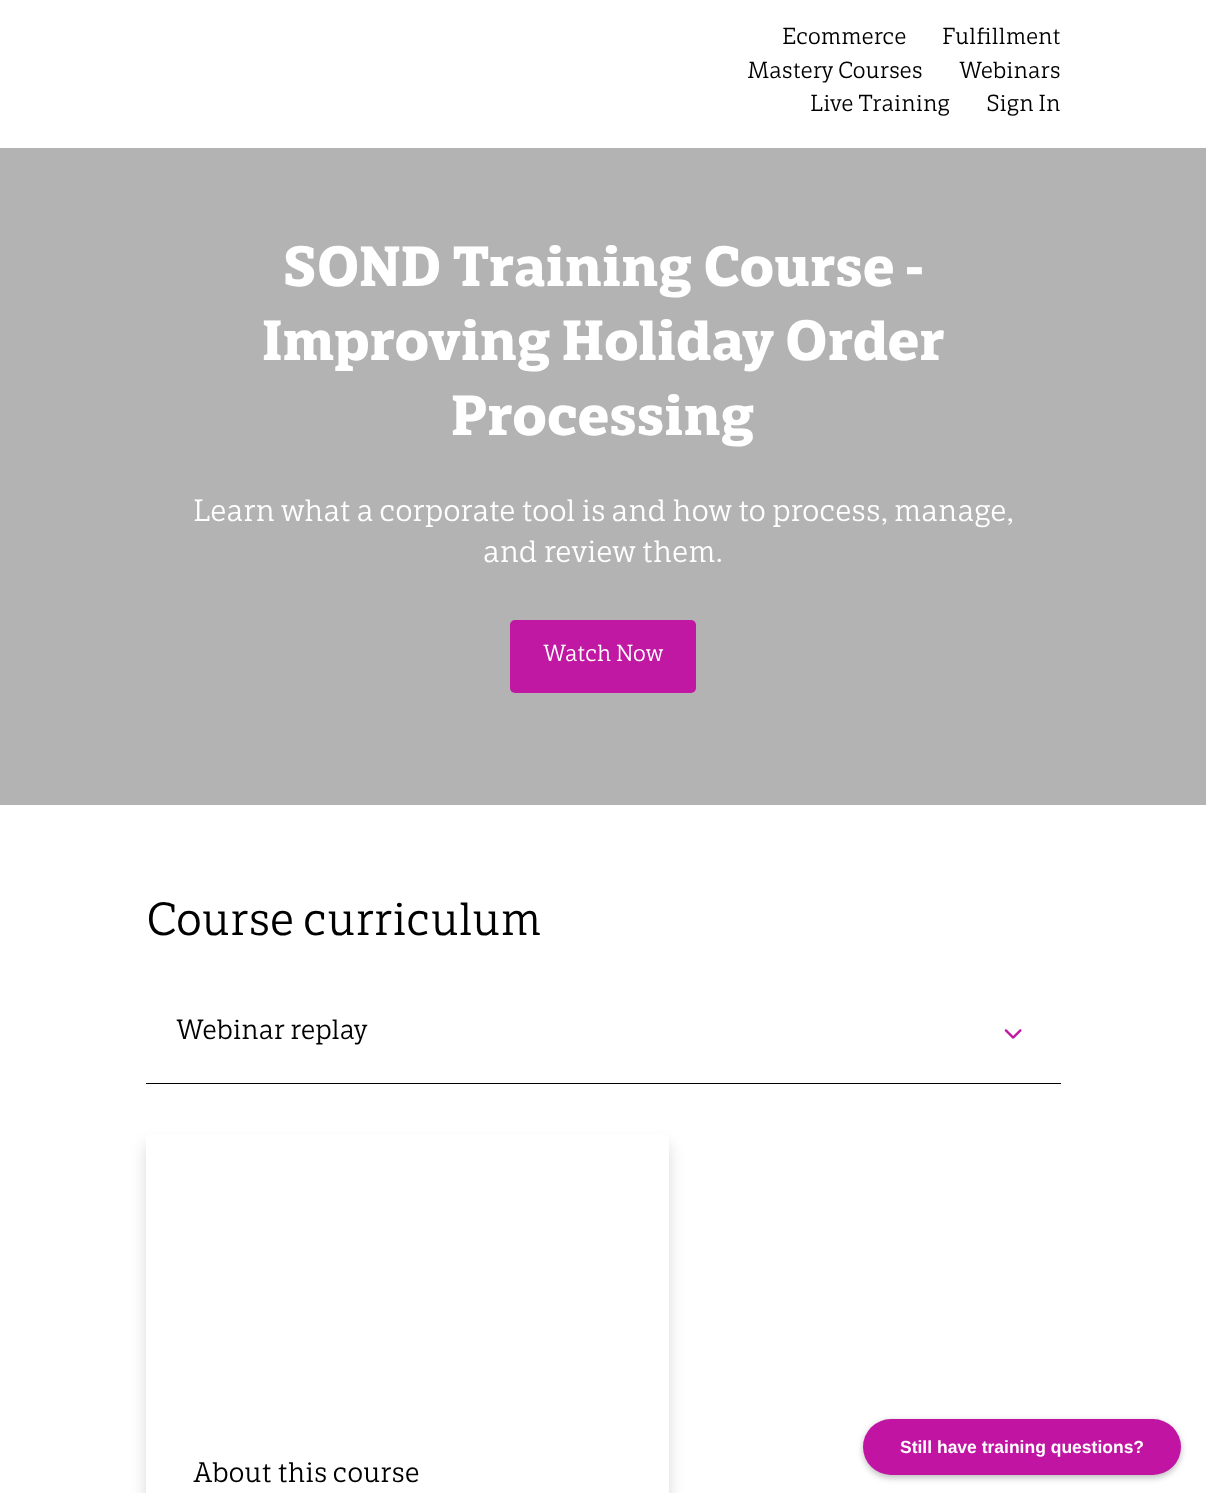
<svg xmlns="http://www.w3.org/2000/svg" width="1206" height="1493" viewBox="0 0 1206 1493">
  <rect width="100%" height="100%" fill="#fff"/>
  <path d="M0 148h1206v657H0z" fill="#b3b3b3"/>
  <rect x="510" y="620" width="186" height="73" rx="5" fill="#c018a2"/>
  <path d="M146 1083h915v1H146z" fill="#000"/>
  <image x="1004" y="1029" width="18" height="10" href="img/1.png"/>
  <rect x="146" y="1144" width="523" height="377" rx="5" fill="#00000026" filter="blur(7.5px)"/>
  <rect x="146" y="1134" width="523" height="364" rx="5" fill="#fff"/>
  <rect x="863" y="1421" width="318" height="57" rx="28.5" fill="#00000040" filter="blur(3px)"/>
  <rect x="863" y="1419" width="318" height="56" rx="28" fill="#c114a2"/>
  <g font-family="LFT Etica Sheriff" font-size="22.5" fill="#000">
    <text x="782" y="44">Ecommerce</text>
    <text x="942" y="44">Fulfillment</text>
    <text x="747" y="78">Mastery Courses</text>
    <text x="959" y="78">Webinars</text>
    <text x="810" y="111">Live Training</text>
    <text x="986" y="111">Sign In</text>
  </g>
  <g font-family="LFT Etica Sheriff" font-size="55" font-weight="bold" fill="#fff">
    <text x="283" y="286">SOND Training Course -</text>
    <text x="262" y="360">Improving Holiday Order</text>
    <text x="451" y="435">Processing</text>
  </g>
  <g font-family="LFT Etica Sheriff" font-size="30" fill="#fff">
    <text x="193" y="521">Learn what a corporate tool is and how to process, manage,</text>
    <text x="483" y="562">and review them.</text>
  </g>
  <text x="543" y="661" font-family="LFT Etica Sheriff" font-size="22.5" fill="#fff">Watch Now</text>
  <text x="146" y="935" font-family="LFT Etica Sheriff" font-size="45" fill="#000">Course curriculum</text>
  <text x="176" y="1039" font-family="LFT Etica Sheriff" font-size="27" fill="#000">Webinar replay</text>
  <text x="193" y="1482" font-family="LFT Etica Sheriff" font-size="27.5" fill="#000">About this course</text>
  <text x="900" y="1453" font-family="Liberation Sans" font-size="17.5" font-weight="bold" fill="#fff">Still have training questions?</text>
</svg>
